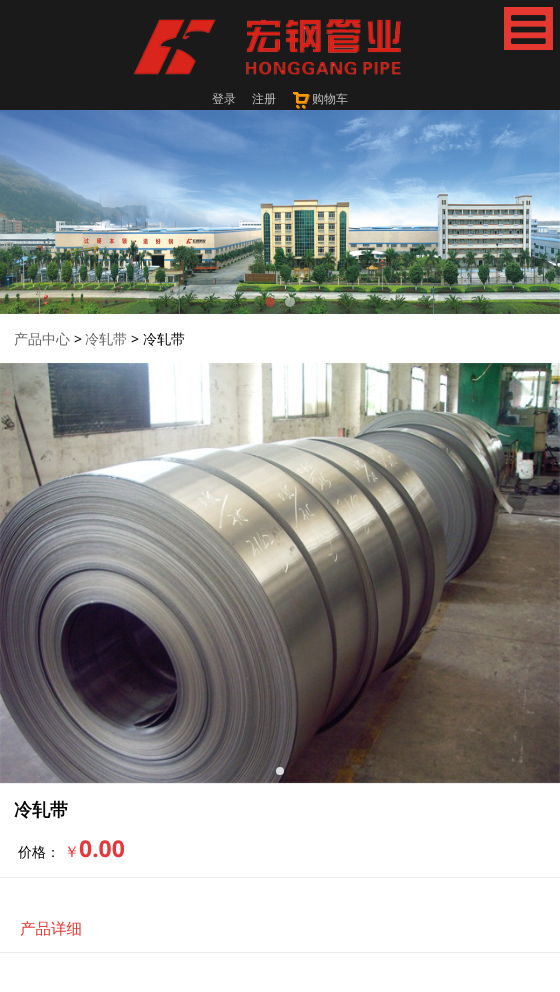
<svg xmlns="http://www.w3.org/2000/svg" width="560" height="992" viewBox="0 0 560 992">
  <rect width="100%" height="100%" fill="#fff"/>
  <path d="M0 0h560v110H0z" fill="#1a1a1a"/>
  <path d="M504 7h49v43H504z" fill="#e53831"/>
  <image x="511" y="15" width="35" height="29" href="img/1.png"/>
  <image x="133" y="19" width="268" height="56" href="img/2.png"/>
  <image x="293" y="92" width="17" height="17" href="img/3.png"/>
  <image x="0" y="110" width="560" height="204" href="img/4.png"/>
  <circle cx="270" cy="302" r="5" fill="#e5383180"/>
  <circle cx="290" cy="302" r="5" fill="#ffffff80"/>
  <image x="0" y="363" width="560" height="420" href="img/5.png"/>
  <circle cx="280" cy="771" r="4" fill="#ffffffcc"/>
  <path d="M0 783h560v1H0z" fill="#ededed"/>
  <path d="M0 877h560v1H0z" fill="#ededed"/>
  <path d="M0 952h560v1H0z" fill="#ebebeb"/>
  <g font-family="WenQuanYi Zen Hei" font-size="12" font-weight="500" fill="#bbb">
    <text x="212" y="103">登录</text>
    <text x="252" y="103">注册</text>
    <text x="312" y="103">购物车</text>
  </g>
  <text x="14" y="344" font-family="WenQuanYi Zen Hei" font-size="14" font-weight="500" fill="#666">产品中心</text>
  <text x="74" y="344" font-family="Noto Sans" font-size="14" fill="#000">&gt;</text>
  <text x="85" y="344" font-family="WenQuanYi Zen Hei" font-size="14" font-weight="500" fill="#666">冷轧带</text>
  <text x="131" y="344" font-family="Noto Sans" font-size="14" fill="#000">&gt;</text>
  <text x="143" y="344" font-family="WenQuanYi Zen Hei" font-size="14" font-weight="500" fill="#000">冷轧带</text>
  <text x="14" y="816" font-family="WenQuanYi Zen Hei" font-size="18" font-weight="bold" fill="#000">冷轧带</text>
  <text x="18" y="857" font-family="WenQuanYi Zen Hei" font-size="14" font-weight="500" fill="#000">价格：</text>
  <text x="64" y="857" font-family="WenQuanYi Zen Hei" font-size="15.5" font-weight="500" fill="#e4393c">￥</text>
  <text x="79" y="857" font-family="Noto Sans" font-size="23" font-weight="bold" fill="#e4393c">0.00</text>
  <text x="20" y="934" font-family="WenQuanYi Zen Hei" font-size="15.5" font-weight="500" fill="#e53831">产品详细</text>
</svg>
